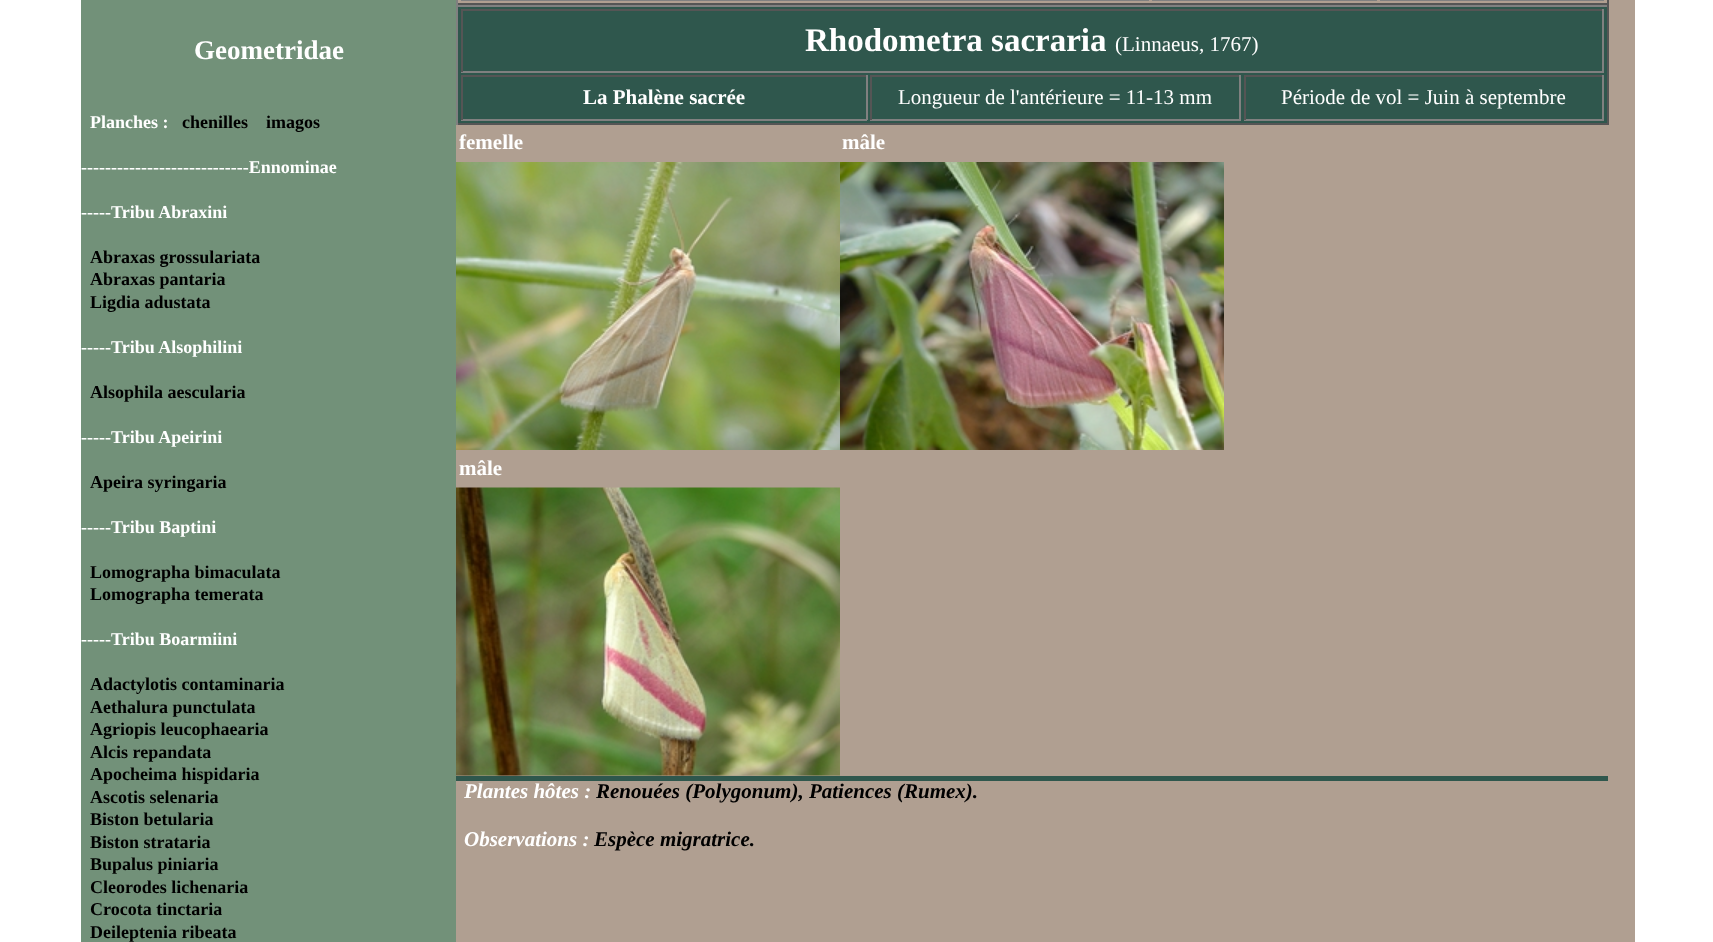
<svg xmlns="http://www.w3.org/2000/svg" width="1713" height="942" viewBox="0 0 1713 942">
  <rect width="100%" height="100%" fill="#fff"/>
  <path d="M81 0h375v942H81z" fill="#729179"/>
  <path d="M456 0h1179v942H456z" fill="#b09f91"/>
  <path d="M1607 0h2v5H1607z" fill="#555"/>
  <path d="M456 3h1152v2H456z" fill="#555"/>
  <path d="M456 0h2v5H456z" fill="#808080"/>
  <path d="M461 0h688v1H461z" fill="#808080"/>
  <path d="M1152 0h225v1H1152z" fill="#808080"/>
  <path d="M1380 0h224v1H1380z" fill="#808080"/>
  <path d="M458 7h1149v116H458z" fill="#2f574d"/>
  <path d="M456 5h1152v2H456z" fill="#808080"/>
  <path d="M1607 5h2v120H1607z" fill="#555"/>
  <path d="M456 123h1152v2H456z" fill="#555"/>
  <path d="M456 5h2v120H456z" fill="#808080"/>
  <path d="M461 9h1143v2H461z" fill="#555"/>
  <path d="M1602 9h2v63H1602z" fill="#808080"/>
  <path d="M461 71h1143v2H461z" fill="#808080"/>
  <path d="M461 9h2v63H461z" fill="#555"/>
  <path d="M461 75h406v2H461z" fill="#555"/>
  <path d="M866 75h2v45H866z" fill="#808080"/>
  <path d="M461 119h406v2H461z" fill="#808080"/>
  <path d="M461 75h2v45H461z" fill="#555"/>
  <path d="M870 75h371v2H870z" fill="#555"/>
  <path d="M1239 75h2v45H1239z" fill="#808080"/>
  <path d="M870 119h371v2H870z" fill="#808080"/>
  <path d="M870 75h2v45H870z" fill="#555"/>
  <path d="M1244 75h360v2H1244z" fill="#555"/>
  <path d="M1602 75h2v45H1602z" fill="#808080"/>
  <path d="M1244 119h360v2H1244z" fill="#808080"/>
  <path d="M1244 75h2v45H1244z" fill="#555"/>
  <image x="456" y="162" width="384" height="288" href="img/1.png"/>
  <image x="840" y="162" width="384" height="288" href="img/2.png"/>
  <image x="456" y="487" width="384" height="289" href="img/3.png"/>
  <path d="M456 776h1152v5H456z" fill="#2f574d"/>
  <text x="194" y="59" font-family="Liberation Serif" font-size="27" font-weight="bold" fill="#fff">Geometridae</text>
  <text x="90" y="128" font-family="Liberation Serif" font-size="18" font-weight="bold" fill="#fff">Planches :</text>
  <g font-family="Liberation Serif" font-size="18" font-weight="bold" fill="#000">
    <text x="182" y="128">chenilles</text>
    <text x="266" y="128">imagos</text>
  </g>
  <g font-family="Liberation Serif" font-size="18" font-weight="bold" fill="#fff">
    <text x="81" y="173">----------------------------Ennominae</text>
    <text x="81" y="218">-----Tribu Abraxini</text>
  </g>
  <g font-family="Liberation Serif" font-size="18" font-weight="bold" fill="#000">
    <text x="90" y="263">Abraxas grossulariata</text>
    <text x="90" y="285">Abraxas pantaria</text>
    <text x="90" y="308">Ligdia adustata</text>
  </g>
  <text x="81" y="353" font-family="Liberation Serif" font-size="18" font-weight="bold" fill="#fff">-----Tribu Alsophilini</text>
  <text x="90" y="398" font-family="Liberation Serif" font-size="18" font-weight="bold" fill="#000">Alsophila aescularia</text>
  <text x="81" y="443" font-family="Liberation Serif" font-size="18" font-weight="bold" fill="#fff">-----Tribu Apeirini</text>
  <text x="90" y="488" font-family="Liberation Serif" font-size="18" font-weight="bold" fill="#000">Apeira syringaria</text>
  <text x="81" y="533" font-family="Liberation Serif" font-size="18" font-weight="bold" fill="#fff">-----Tribu Baptini</text>
  <g font-family="Liberation Serif" font-size="18" font-weight="bold" fill="#000">
    <text x="90" y="578">Lomographa bimaculata</text>
    <text x="90" y="600">Lomographa temerata</text>
  </g>
  <text x="81" y="645" font-family="Liberation Serif" font-size="18" font-weight="bold" fill="#fff">-----Tribu Boarmiini</text>
  <g font-family="Liberation Serif" font-size="18" font-weight="bold" fill="#000">
    <text x="90" y="690">Adactylotis contaminaria</text>
    <text x="90" y="713">Aethalura punctulata</text>
    <text x="90" y="735">Agriopis leucophaearia</text>
    <text x="90" y="758">Alcis repandata</text>
    <text x="90" y="780">Apocheima hispidaria</text>
    <text x="90" y="803">Ascotis selenaria</text>
    <text x="90" y="825">Biston betularia</text>
    <text x="90" y="848">Biston strataria</text>
    <text x="90" y="870">Bupalus piniaria</text>
    <text x="90" y="893">Cleorodes lichenaria</text>
    <text x="90" y="915">Crocota tinctaria</text>
    <text x="90" y="938">Deileptenia ribeata</text>
  </g>
  <text x="805" y="51" font-family="Liberation Serif" font-size="33" font-weight="bold" fill="#fff">Rhodometra sacraria</text>
  <text x="1115" y="51" font-family="Liberation Serif" font-size="21" fill="#fff">(Linnaeus, 1767)</text>
  <text x="583" y="104" font-family="Liberation Serif" font-size="21" font-weight="bold" fill="#fff">La Phalène sacrée</text>
  <g font-family="Liberation Serif" font-size="21" fill="#fff">
    <text x="898" y="104">Longueur de l'antérieure = 11-13 mm</text>
    <text x="1281" y="104">Période de vol = Juin à septembre</text>
  </g>
  <g font-family="Liberation Serif" font-size="21" font-weight="bold" fill="#fff">
    <text x="459" y="149">femelle</text>
    <text x="842" y="149">mâle</text>
    <text x="459" y="475">mâle</text>
  </g>
  <text x="464" y="798" font-family="Liberation Serif" font-size="21" font-weight="bold" font-style="italic" fill="#fff">Plantes hôtes :</text>
  <text x="596" y="798" font-family="Liberation Serif" font-size="21" font-weight="bold" font-style="italic" fill="#000">Renouées (Polygonum), Patiences (Rumex).</text>
  <text x="464" y="846" font-family="Liberation Serif" font-size="21" font-weight="bold" font-style="italic" fill="#fff">Observations :</text>
  <text x="594" y="846" font-family="Liberation Serif" font-size="21" font-weight="bold" font-style="italic" fill="#000">Espèce migratrice.</text>
</svg>
